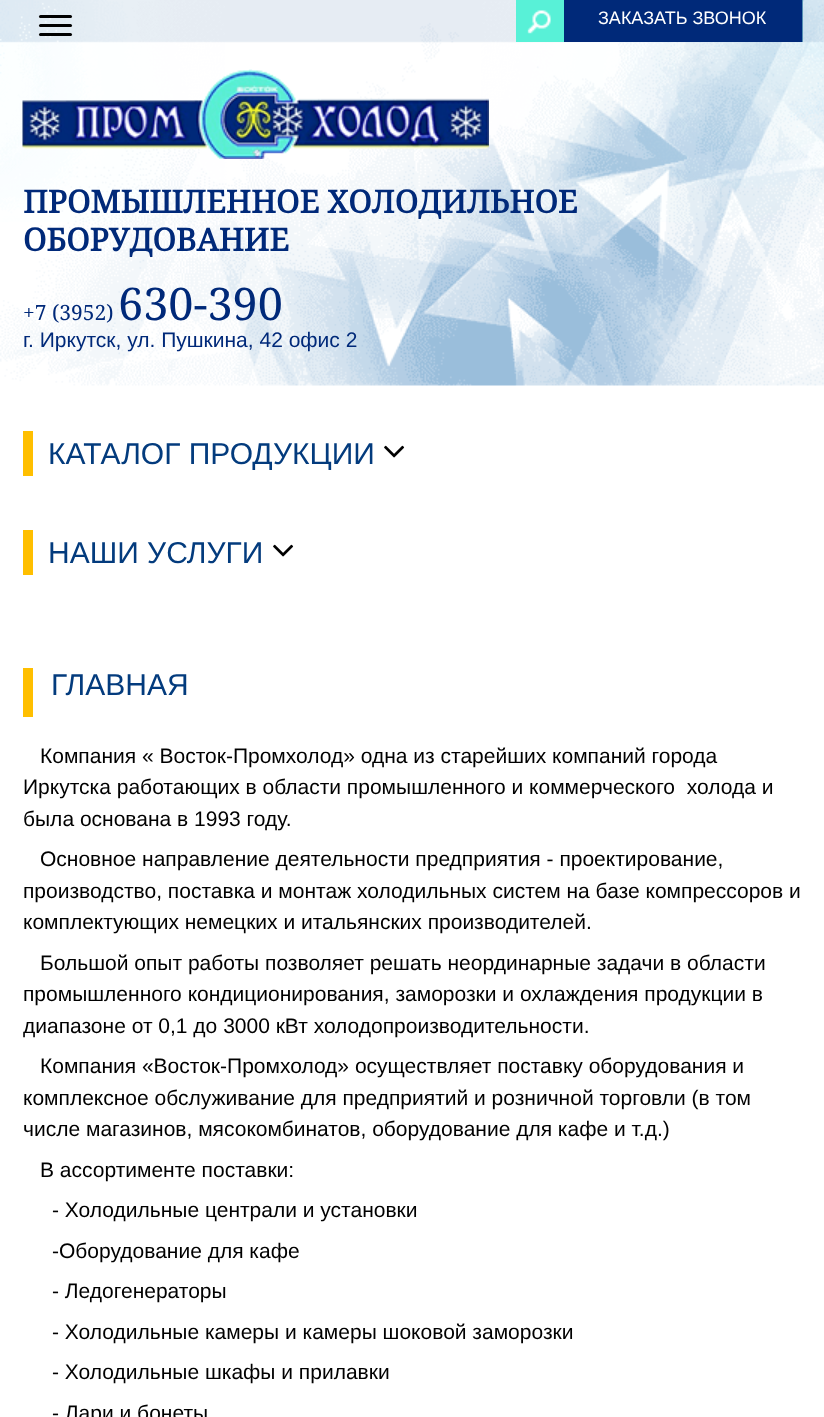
<svg xmlns="http://www.w3.org/2000/svg" width="824" height="1417" viewBox="0 0 824 1417">
  <rect width="100%" height="100%" fill="#fff"/>
  <image x="0" y="0" width="824" height="386" href="img/1.png"/>
  <image x="0" y="0" width="824" height="222" href="img/2.png"/>
  <rect x="39" y="15" width="33" height="3" rx="1.5" fill="#000"/>
  <rect x="39" y="24" width="33" height="3" rx="1.5" fill="#000"/>
  <rect x="39" y="33" width="33" height="3" rx="1.5" fill="#000"/>
  <image x="516" y="0" width="48" height="42" href="img/3.png"/>
  <path d="M802 0h1v42H802z" fill="#abf8eb"/>
  <image x="800" y="0" width="3" height="42" href="img/4.png"/>
  <path d="M564 0h236v42H564z" fill="#002979"/>
  <image x="22" y="69" width="467" height="90" href="img/5.png"/>
  <path d="M23 431h10v45H23z" fill="#ffbf00"/>
  <image x="384" y="445" width="21" height="13" href="img/6.png"/>
  <path d="M23 530h10v45H23z" fill="#ffbf00"/>
  <image x="273" y="544" width="21" height="13" href="img/6.png"/>
  <path d="M23 668h10v49H23z" fill="#ffbf00"/>
  <text x="598" y="24" font-family="Liberation Sans" font-size="18" fill="#fff">ЗАКАЗАТЬ ЗВОНОК</text>
  <g font-family="Noto Serif" font-size="31.5" font-weight="bold" fill="#002979">
    <text x="23" y="213">ПРОМЫШЛЕННОЕ ХОЛОДИЛЬНОЕ</text>
    <text x="23" y="251">ОБОРУДОВАНИЕ</text>
  </g>
  <text x="23" y="320" font-family="Noto Serif" font-size="21" fill="#002979">+7 (3952)</text>
  <text x="118" y="320" font-family="Noto Serif" font-size="45" fill="#002979">630-390</text>
  <text x="23" y="347" font-family="Liberation Sans" font-size="21" fill="#002979">г. Иркутск, ул. Пушкина, 42 офис 2</text>
  <g font-family="Liberation Sans" font-size="30" fill="#033b7d">
    <text x="48" y="464">КАТАЛОГ ПРОДУКЦИИ</text>
    <text x="48" y="563">НАШИ УСЛУГИ</text>
    <text x="51" y="695">ГЛАВНАЯ</text>
  </g>
  <g font-family="Liberation Sans" font-size="21" fill="#000">
    <text x="40" y="763">Компания « Восток-Промхолод» одна из старейших компаний города</text>
    <text x="23" y="794" xml:space="preserve">Иркутска работающих в области промышленного и коммерческого  холода и</text>
    <text x="23" y="826">была основана в 1993 году.</text>
    <text x="40" y="866">Основное направление деятельности предприятия - проектирование,</text>
    <text x="23" y="898">производство, поставка и монтаж холодильных систем на базе компрессоров и</text>
    <text x="23" y="929">комплектующих немецких и итальянских производителей.</text>
    <text x="40" y="970">Большой опыт работы позволяет решать неординарные задачи в области</text>
    <text x="23" y="1001">промышленного кондиционирования, заморозки и охлаждения продукции в</text>
    <text x="23" y="1033">диапазоне от 0,1 до 3000 кВт холодопроизводительности.</text>
    <text x="40" y="1073">Компания «Восток-Промхолод» осуществляет поставку оборудования и</text>
    <text x="23" y="1105">комплексное обслуживание для предприятий и розничной торговли (в том</text>
    <text x="23" y="1136">числе магазинов, мясокомбинатов, оборудование для кафе и т.д.)</text>
    <text x="40" y="1177">В ассортименте поставки:</text>
    <text x="52" y="1217">- Холодильные централи и установки</text>
    <text x="52" y="1258">-Оборудование для кафе</text>
    <text x="52" y="1298">- Ледогенераторы</text>
    <text x="52" y="1339">- Холодильные камеры и камеры шоковой заморозки</text>
    <text x="52" y="1379">- Холодильные шкафы и прилавки</text>
    <text x="52" y="1420">- Лари и бонеты</text>
  </g>
</svg>
